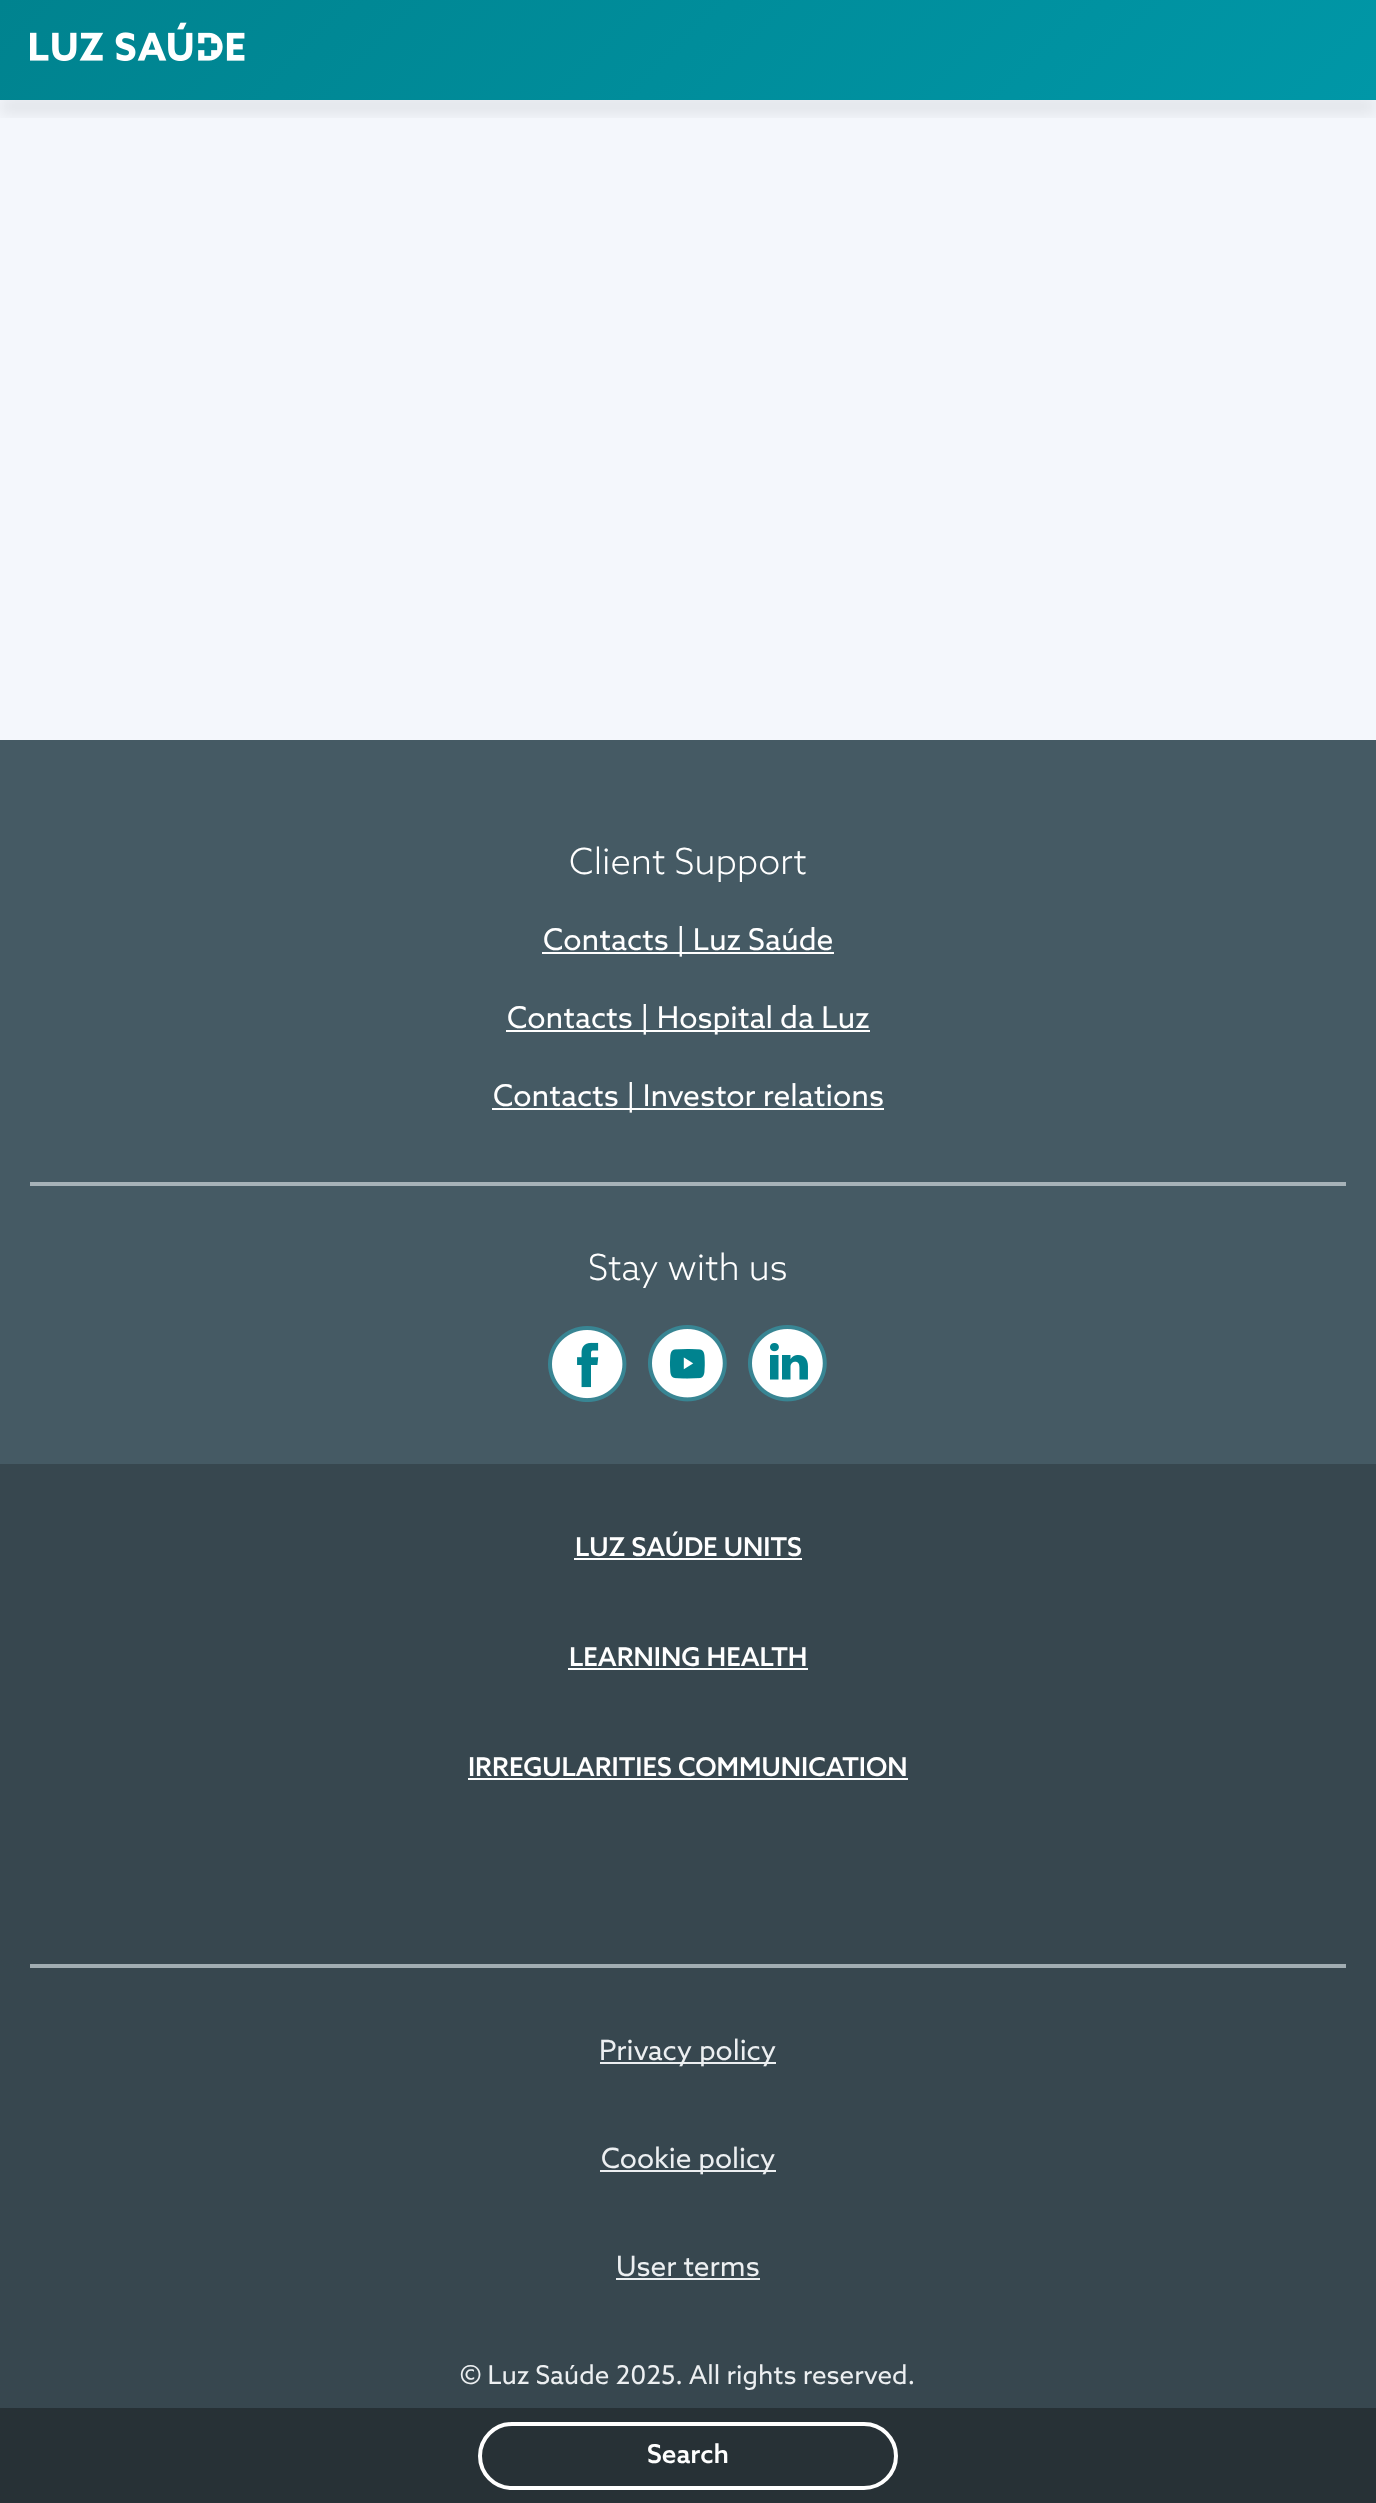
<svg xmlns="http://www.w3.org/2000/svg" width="1376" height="2503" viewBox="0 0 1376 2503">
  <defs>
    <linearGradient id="g1" gradientUnits="userSpaceOnUse" x1="1057" y1="419" x2="319" y2="-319"><stop offset="0" stop-color="#0097a7"/><stop offset="1" stop-color="#00838f"/></linearGradient>
    <clipPath id="clip1"><path d="M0 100h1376v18H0z"/></clipPath>
  </defs>
  <rect width="100%" height="100%" fill="#f4f7fc"/>
  <path d="M0 0h1376v100H0z" fill="url(#g1)"/>
  <image x="30" y="22" width="215" height="39" href="img/1.png"/>
  <g clip-path="url(#clip1)">
    <path d="M0 100h1376v12H0z" fill="#0000001a" filter="blur(8px)"/>
  </g>
  <path d="M0 740h1376v724H0z" fill="#455a64"/>
  <path d="M30 1182h1316v4H30z" fill="#a6b2b8"/>
  <path d="M542 952h292v2H542z" fill="#fff"/>
  <path d="M506 1030h364v2H506z" fill="#fff"/>
  <path d="M492 1108h392v2H492z" fill="#fff"/>
  <image x="548" y="1326" width="79" height="76" href="img/2.png"/>
  <image x="648" y="1325" width="79" height="77" href="img/3.png"/>
  <image x="748" y="1325" width="79" height="77" href="img/4.png"/>
  <path d="M0 1464h1376v944H0z" fill="#37474f"/>
  <path d="M574 1558h228v2H574z" fill="#fff"/>
  <path d="M568 1668h240v2H568z" fill="#fff"/>
  <path d="M468 1778h440v2H468z" fill="#fff"/>
  <path d="M30 1964h1316v4H30z" fill="#a1adb2"/>
  <path d="M600 2062h176v2H600z" fill="#eceff1"/>
  <path d="M600 2170h176v2H600z" fill="#eceff1"/>
  <path d="M616 2278h144v2H616z" fill="#eceff1"/>
  <path d="M0 2408h1376v95H0z" fill="#273136"/>
  <rect x="480" y="2424" width="416" height="64" rx="32" fill="none" stroke="#fff" stroke-width="4"/>
  <text x="569" y="874" font-family="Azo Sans" font-size="36" font-weight="300" fill="#fff">Client Support</text>
  <g font-family="Azo Sans" font-size="30" fill="#fff">
    <text x="543" y="950">Contacts | Luz Saúde</text>
    <text x="507" y="1028">Contacts | Hospital da Luz</text>
    <text x="493" y="1106">Contacts | Investor relations</text>
  </g>
  <text x="588" y="1280" font-family="Azo Sans" font-size="36" font-weight="300" fill="#fff">Stay with us</text>
  <g font-family="Azo Sans" font-size="26" font-weight="500" fill="#fff">
    <text x="575" y="1556">LUZ SAÚDE UNITS</text>
    <text x="569" y="1666">LEARNING HEALTH</text>
    <text x="468" y="1776">IRREGULARITIES COMMUNICATION</text>
  </g>
  <g font-family="Azo Sans" font-size="28" fill="#eceff1">
    <text x="599" y="2060">Privacy policy</text>
    <text x="601" y="2168">Cookie policy</text>
    <text x="616" y="2276">User terms</text>
  </g>
  <text x="460" y="2384" font-family="Azo Sans" font-size="26" fill="#eceff1">© Luz Saúde 2025. All rights reserved.</text>
  <text x="647" y="2463" font-family="Azo Sans" font-size="26" font-weight="500" fill="#fff">Search</text>
</svg>
